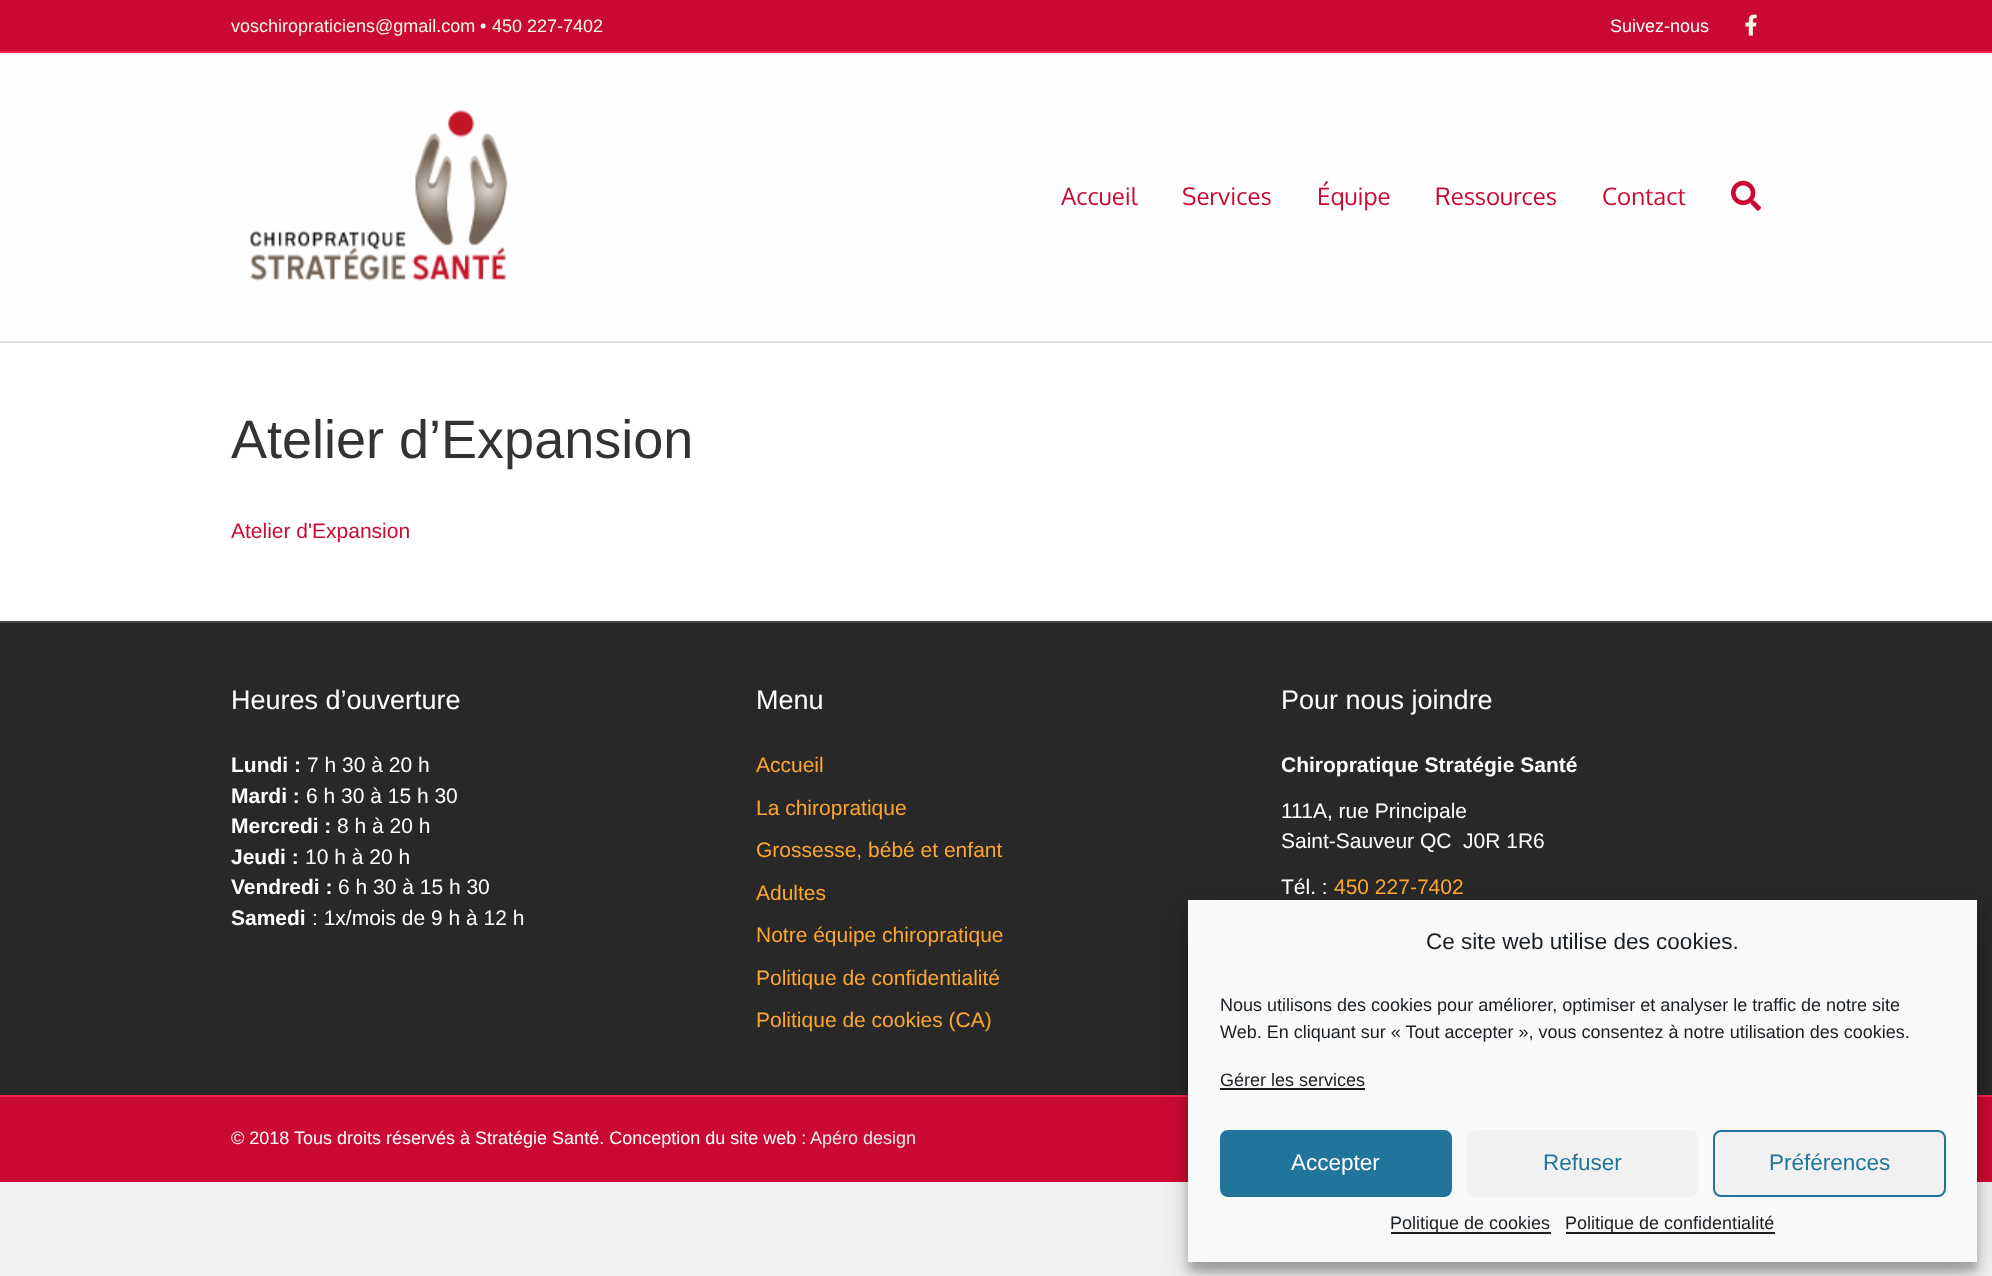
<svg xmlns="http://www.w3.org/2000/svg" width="1992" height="1276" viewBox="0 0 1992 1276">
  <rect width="100%" height="100%" fill="#f2f2f2"/>
  <path d="M0 0h1992v51H0z" fill="#cb0a33"/>
  <path d="M0 51h1992v2H0z" fill="#f42350"/>
  <image x="1745" y="14" width="12" height="22" href="img/1.png"/>
  <path d="M0 53h1992v288H0z" fill="#fefefe"/>
  <path d="M0 341h1992v2H0z" fill="#ddd"/>
  <image x="250" y="110" width="258" height="172" href="img/2.png"/>
  <image x="1731" y="180" width="30" height="31" href="img/3.png"/>
  <path d="M0 343h1992v278H0z" fill="#fff"/>
  <path d="M0 623h1992v472H0z" fill="#282828"/>
  <path d="M0 621h1992v2H0z" fill="#494949"/>
  <path d="M0 1097h1992v85H0z" fill="#cb0a33"/>
  <path d="M0 1095h1992v2H0z" fill="#f42350"/>
  <path d="M1188 909h789v362H1188z" fill="#0000003b" filter="blur(4.5px)"/>
  <path d="M1188 915h789v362H1188z" fill="#00000030" filter="blur(15px)"/>
  <path d="M1188 900h789v362H1188z" fill="#f9f9f9"/>
  <path d="M1220 1088h145v2H1220z" fill="#191e23"/>
  <rect x="1221" y="1131" width="230" height="65" rx="7" fill="#21759b" stroke="#21759b" stroke-width="2"/>
  <rect x="1467" y="1130" width="231" height="67" rx="8" fill="#f1f1f1"/>
  <rect x="1714" y="1131" width="231" height="65" rx="7" fill="#f1f1f1" stroke="#21759b" stroke-width="2"/>
  <path d="M1391 1232h160v2H1391z" fill="#191e23"/>
  <path d="M1566 1232h209v2H1566z" fill="#191e23"/>
  <text x="231" y="32" font-family="Liberation Sans" font-size="18" fill="#f7f7e5">voschiropraticiens@gmail.com</text>
  <text x="480" y="32" font-family="Liberation Sans" font-size="18" fill="#fff">•</text>
  <text x="492" y="32" font-family="Liberation Sans" font-size="18" fill="#f7f7e5">450 227-7402</text>
  <text x="1610" y="32" font-family="Liberation Sans" font-size="18" fill="#fff">Suivez-nous</text>
  <g font-family="Oxygen" font-size="24" fill="#cb0a33">
    <text x="1061" y="205">Accueil</text>
    <text x="1182" y="205">Services</text>
    <text x="1317" y="205">Équipe</text>
    <text x="1435" y="205">Ressources</text>
    <text x="1602" y="205">Contact</text>
  </g>
  <text x="231" y="458" font-family="Liberation Sans" font-size="54" fill="#333">Atelier d’Expansion</text>
  <text x="231" y="538" font-family="Liberation Sans" font-size="21" fill="#cb0a33">Atelier d'Expansion</text>
  <text x="231" y="709" font-family="Liberation Sans" font-size="27" fill="#fff">Heures d’ouverture</text>
  <text x="231" y="772" font-family="Liberation Sans" font-size="21" font-weight="bold" fill="#fff">Lundi :</text>
  <text x="307" y="772" font-family="Liberation Sans" font-size="21" fill="#fff">7 h 30 à 20 h</text>
  <text x="231" y="803" font-family="Liberation Sans" font-size="21" font-weight="bold" fill="#fff">Mardi :</text>
  <text x="306" y="803" font-family="Liberation Sans" font-size="21" fill="#fff">6 h 30 à 15 h 30</text>
  <text x="231" y="833" font-family="Liberation Sans" font-size="21" font-weight="bold" fill="#fff">Mercredi :</text>
  <text x="337" y="833" font-family="Liberation Sans" font-size="21" fill="#fff">8 h à 20 h</text>
  <text x="231" y="864" font-family="Liberation Sans" font-size="21" font-weight="bold" fill="#fff">Jeudi :</text>
  <text x="305" y="864" font-family="Liberation Sans" font-size="21" fill="#fff">10 h à 20 h</text>
  <text x="231" y="894" font-family="Liberation Sans" font-size="21" font-weight="bold" fill="#fff">Vendredi :</text>
  <text x="338" y="894" font-family="Liberation Sans" font-size="21" fill="#fff">6 h 30 à 15 h 30</text>
  <text x="231" y="925" font-family="Liberation Sans" font-size="21" font-weight="bold" fill="#fff">Samedi</text>
  <text x="312" y="925" font-family="Liberation Sans" font-size="21" fill="#fff">: 1x/mois de 9 h à 12 h</text>
  <text x="756" y="709" font-family="Liberation Sans" font-size="27" fill="#fff">Menu</text>
  <g font-family="Liberation Sans" font-size="21" fill="#fda730">
    <text x="756" y="772">Accueil</text>
    <text x="756" y="815">La chiropratique</text>
    <text x="756" y="857">Grossesse, bébé et enfant</text>
    <text x="756" y="900">Adultes</text>
    <text x="756" y="942">Notre équipe chiropratique</text>
    <text x="756" y="985">Politique de confidentialité</text>
    <text x="756" y="1027">Politique de cookies (CA)</text>
  </g>
  <text x="1281" y="709" font-family="Liberation Sans" font-size="27" fill="#fff">Pour nous joindre</text>
  <text x="1281" y="772" font-family="Liberation Sans" font-size="21" font-weight="bold" fill="#fff">Chiropratique Stratégie Santé</text>
  <g font-family="Liberation Sans" font-size="21" fill="#fff">
    <text x="1281" y="818">111A, rue Principale</text>
    <text x="1281" y="848" xml:space="preserve">Saint-Sauveur QC  J0R 1R6</text>
    <text x="1281" y="894">Tél. :</text>
  </g>
  <text x="1334" y="894" font-family="Liberation Sans" font-size="21" fill="#fda730">450 227-7402</text>
  <text x="231" y="1144" font-family="Liberation Sans" font-size="18" fill="#fff">© 2018 Tous droits réservés à Stratégie Santé. Conception du site web :</text>
  <text x="810" y="1144" font-family="Liberation Sans" font-size="18" fill="#e8e8e8">Apéro design</text>
  <text x="1426" y="949" font-family="Liberation Sans" font-size="22.5" fill="#191e23">Ce site web utilise des cookies.</text>
  <g font-family="Liberation Sans" font-size="18" fill="#191e23">
    <text x="1220" y="1011">Nous utilisons des cookies pour améliorer, optimiser et analyser le traffic de notre site</text>
    <text x="1220" y="1038">Web. En cliquant sur « Tout accepter », vous consentez à notre utilisation des cookies.</text>
    <text x="1220" y="1086">Gérer les services</text>
  </g>
  <text x="1291" y="1170" font-family="Liberation Sans" font-size="22.5" fill="#fff">Accepter</text>
  <g font-family="Liberation Sans" font-size="22.5" fill="#21759b">
    <text x="1543" y="1170">Refuser</text>
    <text x="1769" y="1170">Préférences</text>
  </g>
  <g font-family="Liberation Sans" font-size="18" fill="#191e23">
    <text x="1390" y="1229">Politique de cookies</text>
    <text x="1565" y="1229">Politique de confidentialité</text>
  </g>
</svg>
